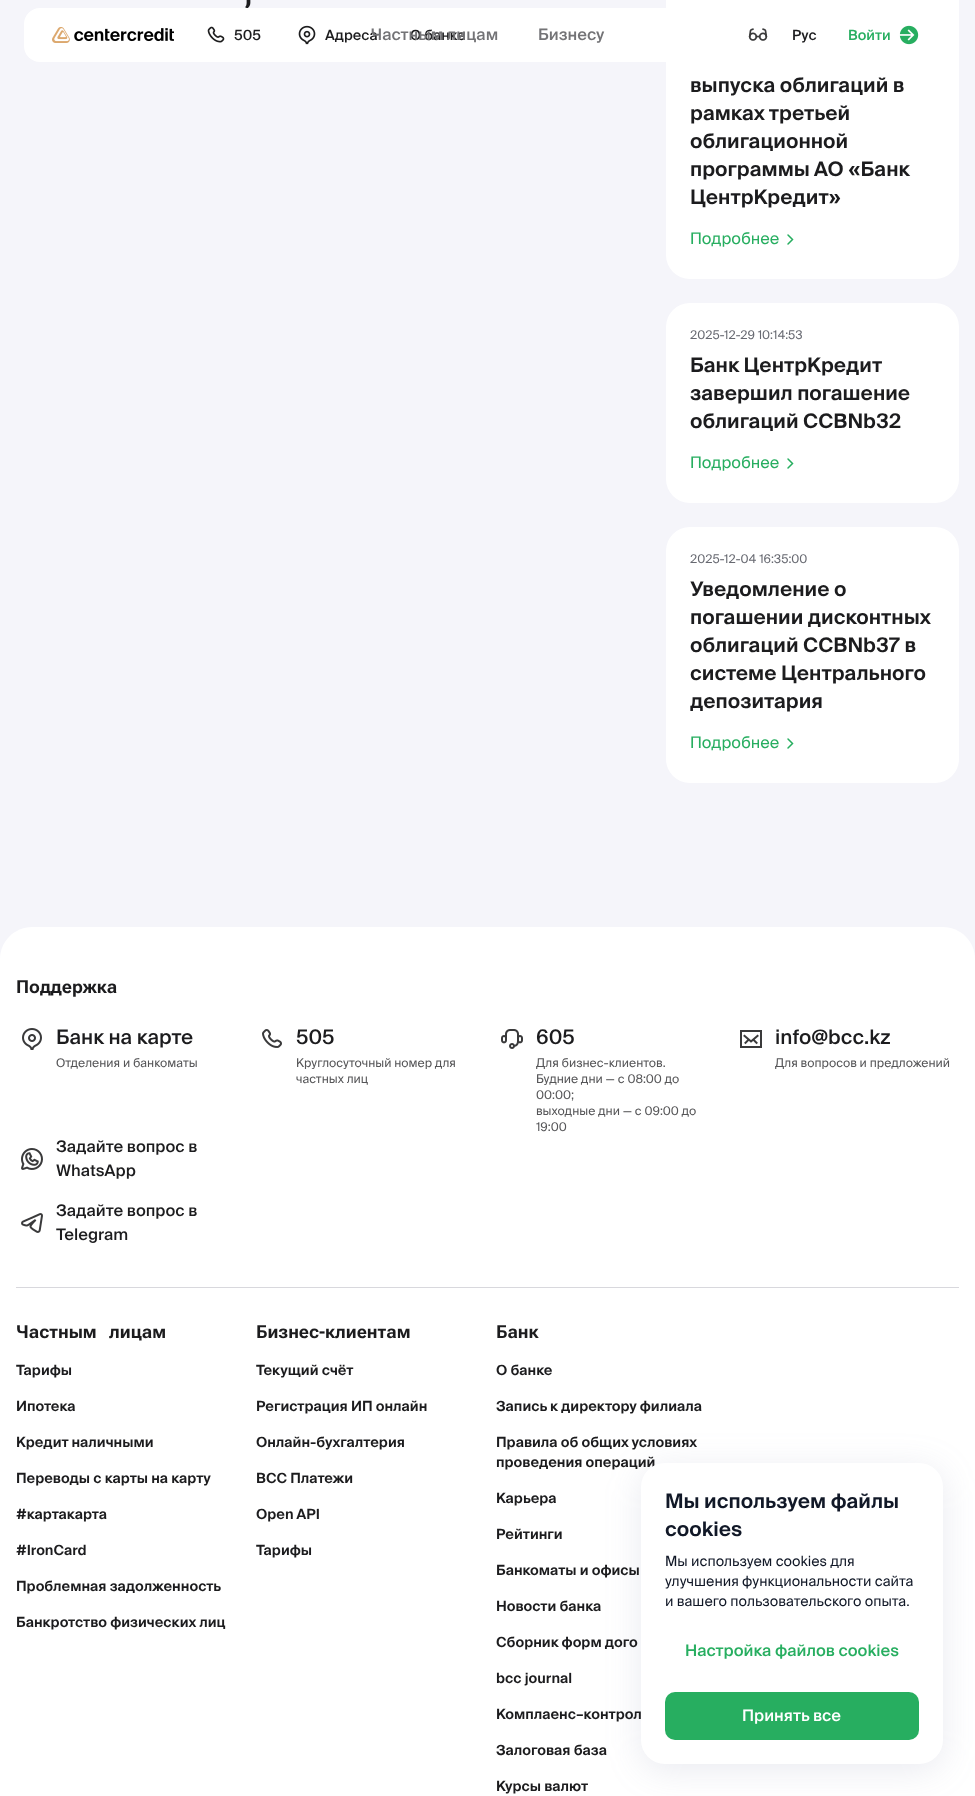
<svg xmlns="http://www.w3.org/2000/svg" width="975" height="1796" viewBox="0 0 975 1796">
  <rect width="100%" height="100%" fill="#f5f5fa"/>
  <rect x="666" y="-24" width="293" height="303" rx="24" fill="#fff"/>
  <path d="M788 235L792.5 239.5L788 244" fill="none" stroke="#27ae60" stroke-width="1.5" stroke-linecap="round"/>
  <rect x="666" y="303" width="293" height="200" rx="24" fill="#fff"/>
  <path d="M788 459L792.5 463.5L788 468" fill="none" stroke="#27ae60" stroke-width="1.5" stroke-linecap="round"/>
  <rect x="666" y="527" width="293" height="256" rx="24" fill="#fff"/>
  <path d="M788 739L792.5 743.5L788 748" fill="none" stroke="#27ae60" stroke-width="1.5" stroke-linecap="round"/>
  <path d="M32 927H943C960.5 927 975 941.5 975 959V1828H0V959C0 941.5 14.5 927 32 927Z" fill="#fff"/>
  <path d="M16 1287h943v1H16z" fill="#d8d8dd"/>
  <image x="22" y="1028" width="20" height="22" href="img/6.png"/>
  <image x="262" y="1029" width="20" height="19" href="img/7.png"/>
  <image x="501" y="1029" width="22" height="20" href="img/8.png"/>
  <image x="740" y="1030" width="22" height="18" href="img/9.png"/>
  <image x="21" y="1148" width="22" height="22" href="img/10.png"/>
  <image x="21" y="1213" width="22" height="20" href="img/11.png"/>
  <rect x="641" y="1469" width="302" height="301" rx="24" fill="#7c85a52b" filter="blur(17.5px)"/>
  <text x="244" y="4" word-spacing="5" font-family="Roboto Flex" font-size="28" font-weight="bold" fill="#1c1c1e">,</text>
  <g font-family="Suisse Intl" font-size="20" font-weight="600" fill="#1c1c1e">
    <text x="690" y="92">выпуска облигаций в</text>
    <text x="690" y="120">рамках третьей</text>
    <text x="690" y="148">облигационной</text>
    <text x="690" y="176">программы АО «Банк</text>
    <text x="690" y="204">ЦентрКредит»</text>
  </g>
  <text x="690" y="244" font-family="Suisse Intl" font-size="16" fill="#27ae60">Подробнее</text>
  <text x="690" y="339" font-family="Suisse Intl" font-size="12" fill="#676971">2025-12-29 10:14:53</text>
  <g font-family="Suisse Intl" font-size="20" font-weight="600" fill="#1c1c1e">
    <text x="690" y="372">Банк ЦентрКредит</text>
    <text x="690" y="400">завершил погашение</text>
    <text x="690" y="428">облигаций CCBNb32</text>
  </g>
  <text x="690" y="468" font-family="Suisse Intl" font-size="16" fill="#27ae60">Подробнее</text>
  <text x="690" y="563" font-family="Suisse Intl" font-size="12" fill="#676971">2025-12-04 16:35:00</text>
  <g font-family="Suisse Intl" font-size="20" font-weight="600" fill="#1c1c1e">
    <text x="690" y="596">Уведомление о</text>
    <text x="690" y="624">погашении дисконтных</text>
    <text x="690" y="652">облигаций CCBNb37 в</text>
    <text x="690" y="680">системе Центрального</text>
    <text x="690" y="708">депозитария</text>
  </g>
  <text x="690" y="748" font-family="Suisse Intl" font-size="16" fill="#27ae60">Подробнее</text>
  <rect x="24" y="8" width="927" height="54" rx="16" fill="#fff"/>
  <image x="52" y="27" width="122" height="16" href="img/1.png"/>
  <image x="207" y="26" width="18" height="17" href="img/2.png"/>
  <text x="234" y="40" font-family="Suisse Intl" font-size="14" font-weight="500" fill="#1c1c1e">505</text>
  <image x="298" y="25" width="18" height="20" href="img/3.png"/>
  <g font-family="Suisse Intl" font-size="14" font-weight="500" fill="#1c1c1e">
    <text x="325" y="40">Адреса</text>
    <text x="410" y="40">О банке</text>
  </g>
  <g font-family="Suisse Intl" font-size="16" font-weight="500" fill="#737376">
    <text x="371" y="40">Частным лицам</text>
    <text x="538" y="40">Бизнесу</text>
  </g>
  <image x="748" y="28" width="20" height="13" href="img/4.png"/>
  <text x="792" y="40" font-family="Suisse Intl" font-size="14" font-weight="500" fill="#1c1c1e">Рус</text>
  <text x="848" y="40" font-family="Suisse Intl" font-size="14" font-weight="500" fill="#27ae60">Войти</text>
  <image x="899" y="25" width="20" height="20" href="img/5.png"/>
  <text x="16" y="993" font-family="Roboto Flex" font-size="18" font-weight="bold" fill="#1c1c1e">Поддержка</text>
  <text x="56" y="1044" font-family="Suisse Intl" font-size="20" font-weight="500" fill="#1c1c1e">Банк на карте</text>
  <text x="56" y="1067" font-family="Suisse Intl" font-size="12" fill="#565658">Отделения и банкоматы</text>
  <text x="296" y="1044" font-family="Suisse Intl" font-size="20" font-weight="500" fill="#1c1c1e">505</text>
  <g font-family="Suisse Intl" font-size="12" fill="#565658">
    <text x="296" y="1067">Круглосуточный номер для</text>
    <text x="296" y="1083">частных лиц</text>
  </g>
  <text x="536" y="1044" font-family="Suisse Intl" font-size="20" font-weight="500" fill="#1c1c1e">605</text>
  <g font-family="Suisse Intl" font-size="12" fill="#565658">
    <text x="536" y="1067">Для бизнес-клиентов.</text>
    <text x="536" y="1083">Будние дни — с 08:00 до</text>
    <text x="536" y="1099">00:00;</text>
    <text x="536" y="1115">выходные дни — с 09:00 до</text>
    <text x="536" y="1131">19:00</text>
  </g>
  <text x="775" y="1044" font-family="Suisse Intl" font-size="20" font-weight="500" fill="#1c1c1e">info@bcc.kz</text>
  <text x="775" y="1067" font-family="Suisse Intl" font-size="12" fill="#565658">Для вопросов и предложений</text>
  <g font-family="Suisse Intl" font-size="16" font-weight="500" fill="#1c1c1e">
    <text x="56" y="1152">Задайте вопрос в</text>
    <text x="56" y="1176">WhatsApp</text>
    <text x="56" y="1216">Задайте вопрос в</text>
    <text x="56" y="1240">Telegram</text>
  </g>
  <text x="16" y="1338" word-spacing="8" font-family="Roboto Flex" font-size="18" font-weight="bold" fill="#1c1c1e">Частным лицам</text>
  <g font-family="Suisse Intl" font-size="14" font-weight="600" fill="#1c1c1e">
    <text x="16" y="1375">Тарифы</text>
    <text x="16" y="1411">Ипотека</text>
    <text x="16" y="1447">Кредит наличными</text>
    <text x="16" y="1483">Переводы с карты на карту</text>
    <text x="16" y="1519">#картакарта</text>
    <text x="16" y="1555">#IronCard</text>
    <text x="16" y="1591">Проблемная задолженность</text>
    <text x="16" y="1627">Банкротство физических лиц</text>
  </g>
  <text x="256" y="1338" font-family="Roboto Flex" font-size="18" font-weight="bold" fill="#1c1c1e">Бизнес-клиентам</text>
  <g font-family="Suisse Intl" font-size="14" font-weight="600" fill="#1c1c1e">
    <text x="256" y="1375">Текущий счёт</text>
    <text x="256" y="1411">Регистрация ИП онлайн</text>
    <text x="256" y="1447">Онлайн-бухгалтерия</text>
    <text x="256" y="1483">BCC Платежи</text>
    <text x="256" y="1519">Open API</text>
    <text x="256" y="1555">Тарифы</text>
  </g>
  <text x="496" y="1338" font-family="Roboto Flex" font-size="18" font-weight="bold" fill="#1c1c1e">Банк</text>
  <g font-family="Suisse Intl" font-size="14" font-weight="600" fill="#1c1c1e">
    <text x="496" y="1375">О банке</text>
    <text x="496" y="1411">Запись к директору филиала</text>
    <text x="496" y="1447">Правила об общих условиях</text>
    <text x="496" y="1467">проведения операций</text>
    <text x="496" y="1503">Карьера</text>
    <text x="496" y="1539">Рейтинги</text>
    <text x="496" y="1575">Банкоматы и офисы</text>
    <text x="496" y="1611">Новости банка</text>
    <text x="496" y="1647">Сборник форм дого</text>
    <text x="496" y="1683">bcc journal</text>
    <text x="496" y="1719">Комплаенс–контрол</text>
    <text x="496" y="1755">Залоговая база</text>
    <text x="496" y="1791">Курсы валют</text>
  </g>
  <rect x="641" y="1463" width="302" height="301" rx="24" fill="#fff"/>
  <g font-family="Suisse Intl" font-size="20" font-weight="600" fill="#111827">
    <text x="665" y="1508">Мы используем файлы</text>
    <text x="665" y="1536">cookies</text>
  </g>
  <g font-family="Suisse Intl" font-size="14" fill="#111827">
    <text x="665" y="1566">Мы используем cookies для</text>
    <text x="665" y="1586">улучшения функциональности сайта</text>
    <text x="665" y="1606">и вашего пользовательского опыта.</text>
  </g>
  <text x="685" y="1656" font-family="Suisse Intl" font-size="16" font-weight="500" fill="#27ae60">Настройка файлов cookies</text>
  <rect x="665" y="1692" width="254" height="48" rx="10" fill="#27ae60"/>
  <text x="742" y="1721" font-family="Suisse Intl" font-size="16" font-weight="500" fill="#fff">Принять все</text>
</svg>
